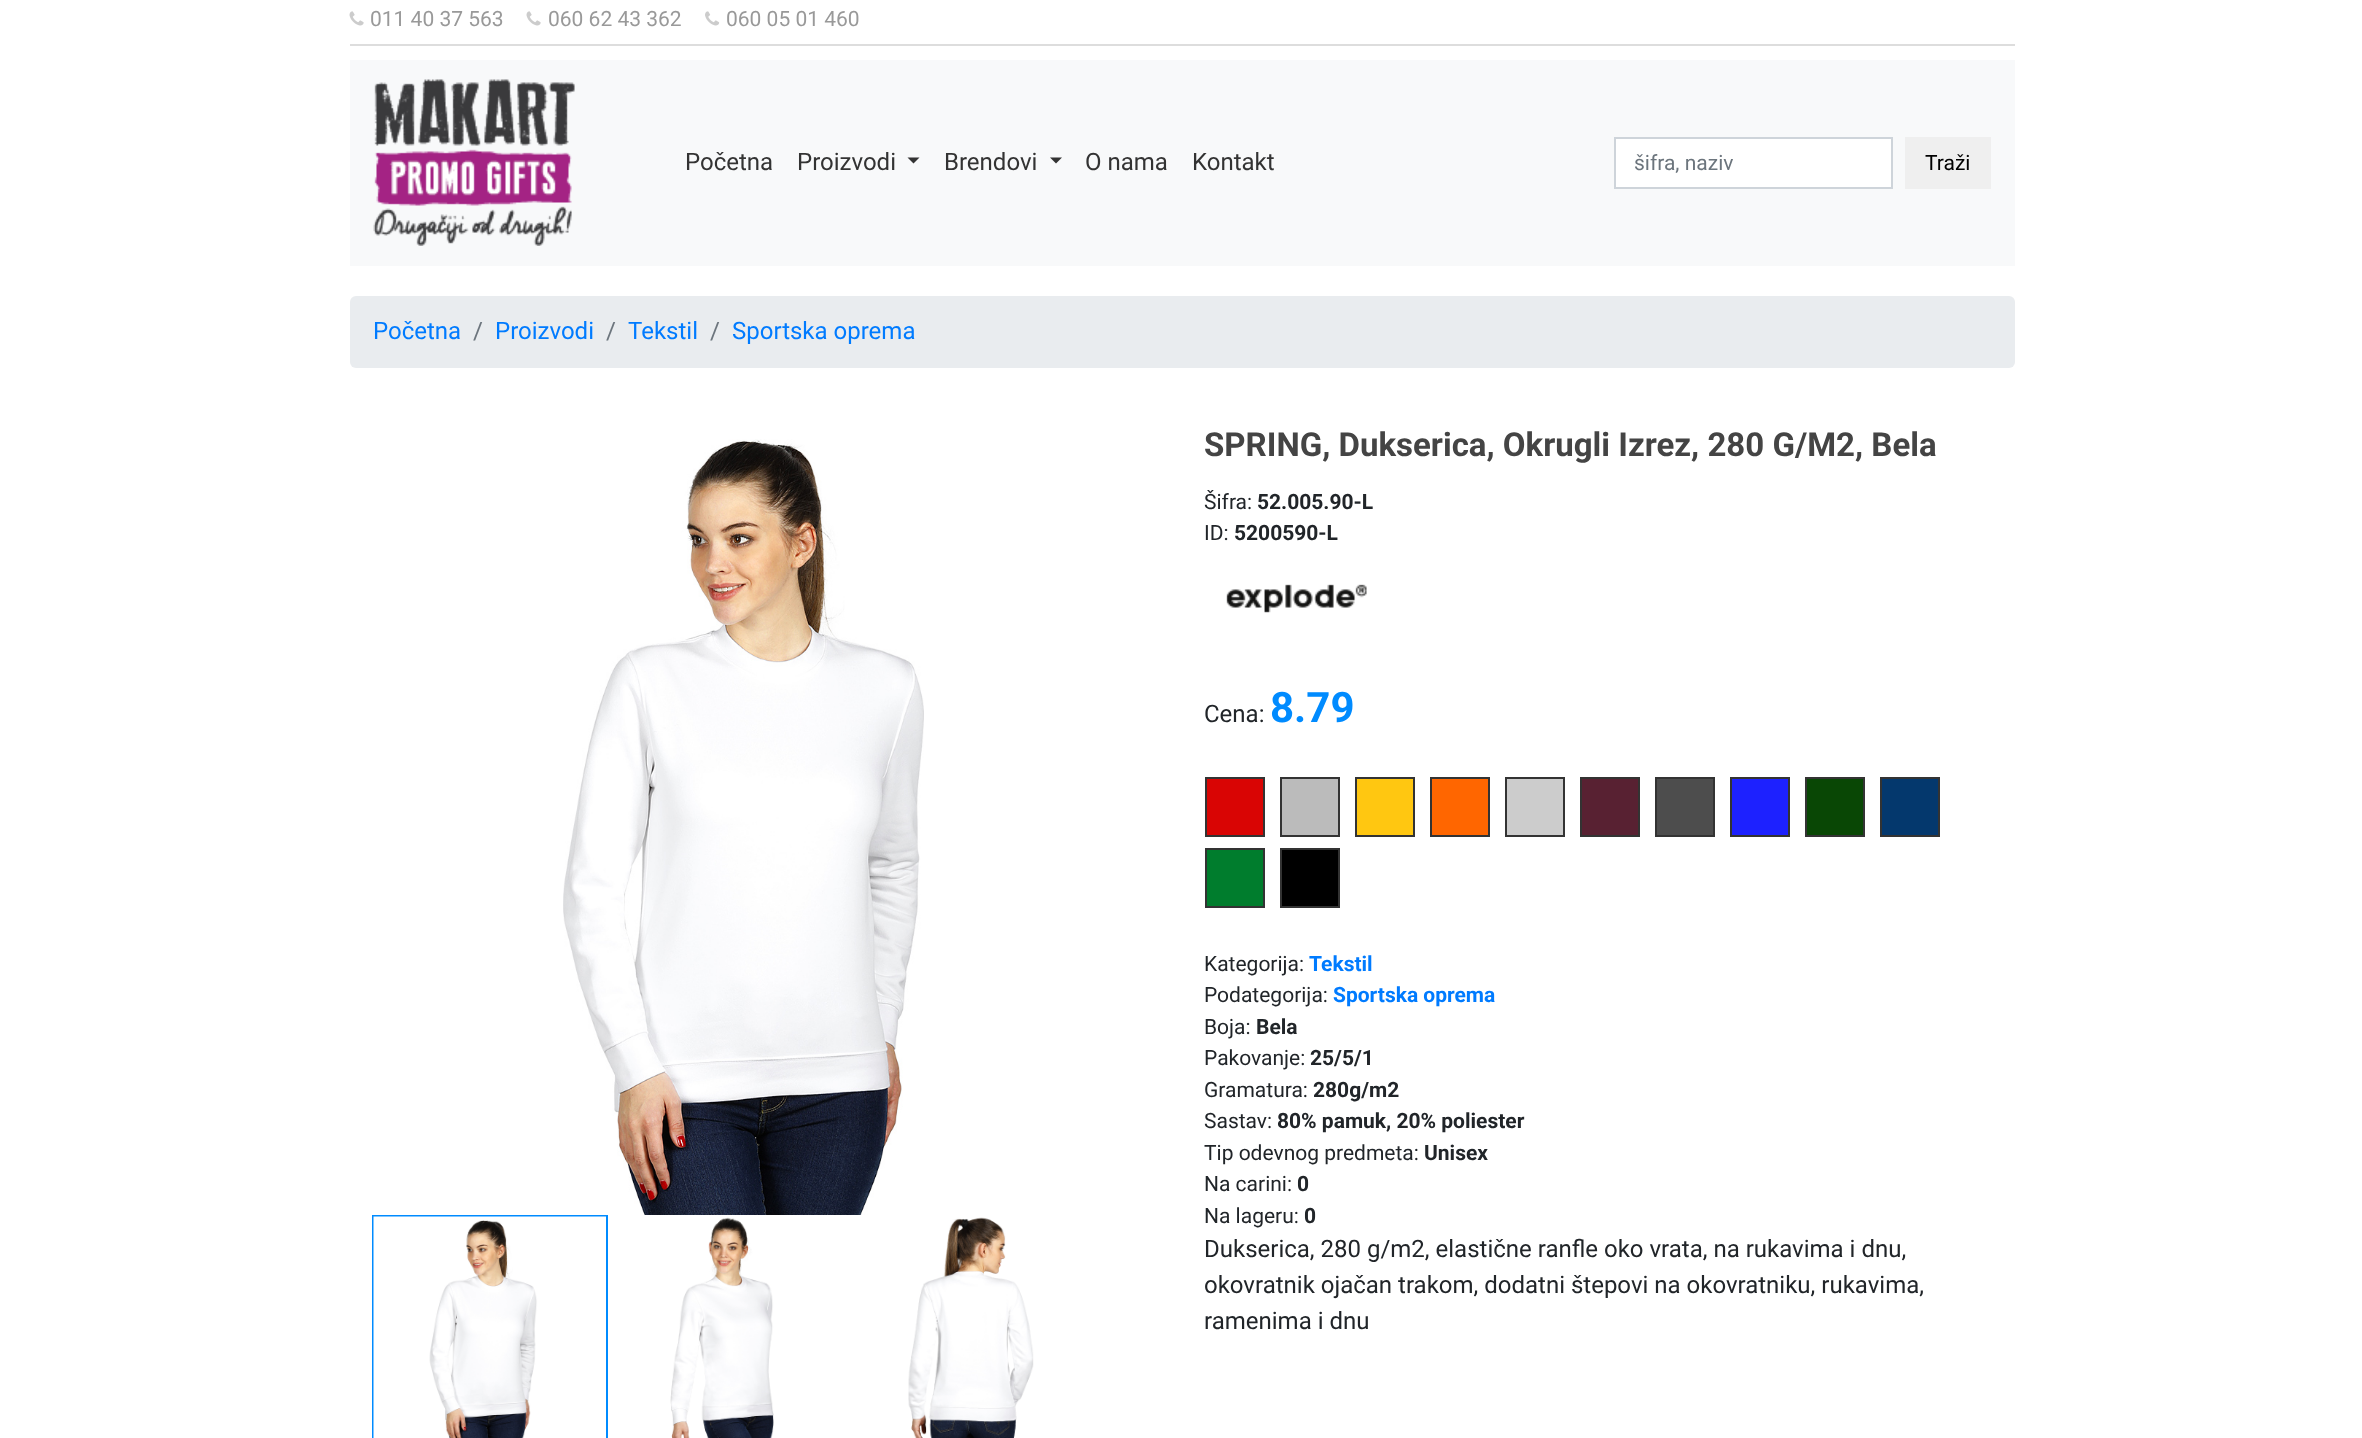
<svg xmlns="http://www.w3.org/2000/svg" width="2362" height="1438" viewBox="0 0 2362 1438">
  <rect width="100%" height="100%" fill="#fff"/>
  <path d="M350 44h1665v2H350z" fill="#ddd"/>
  <image x="349" y="11" width="15" height="15" href="img/1.png"/>
  <image x="526" y="11" width="15" height="15" href="img/1.png"/>
  <image x="705" y="11" width="15" height="15" href="img/2.png"/>
  <path d="M350 60h1665v206H350z" fill="#f8f9fa"/>
  <image x="373" y="79" width="202" height="167" href="img/3.png"/>
  <path d="M907.5 157.5H919.5L913.5 163.5Z" fill="#333"/>
  <path d="M1050 157.5H1062L1056 163.5Z" fill="#333"/>
  <path d="M1615 138h277v50H1615z" fill="#fff" stroke="#ced4da" stroke-width="2"/>
  <path d="M1905 137h86v52H1905z" fill="#efefef"/>
  <rect x="350" y="296" width="1665" height="72" rx="6" fill="#e9ecef"/>
  <image x="563" y="439" width="361" height="776" href="img/4.png"/>
  <path d="M373 1216h234v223H373z" fill="none" stroke="#008bff" stroke-width="2"/>
  <image x="373" y="1216" width="233" height="222" href="img/5.png"/>
  <image x="670" y="1217" width="104" height="221" href="img/6.png"/>
  <image x="908" y="1217" width="126" height="221" href="img/7.png"/>
  <image x="1226" y="584" width="141" height="29" href="img/8.png"/>
  <path d="M1206 778h58v58H1206z" fill="#d90504" stroke="#333" stroke-width="2"/>
  <path d="M1281 778h58v58H1281z" fill="#bbb" stroke="#333" stroke-width="2"/>
  <path d="M1356 778h58v58H1356z" fill="#ffc711" stroke="#333" stroke-width="2"/>
  <path d="M1431 778h58v58H1431z" fill="#f60" stroke="#333" stroke-width="2"/>
  <path d="M1506 778h58v58H1506z" fill="#ccc" stroke="#333" stroke-width="2"/>
  <path d="M1581 778h58v58H1581z" fill="#582132" stroke="#333" stroke-width="2"/>
  <path d="M1656 778h58v58H1656z" fill="#4d4d4d" stroke="#333" stroke-width="2"/>
  <path d="M1731 778h58v58H1731z" fill="#1d21ff" stroke="#333" stroke-width="2"/>
  <path d="M1806 778h58v58H1806z" fill="#094705" stroke="#333" stroke-width="2"/>
  <path d="M1881 778h58v58H1881z" fill="#04386d" stroke="#333" stroke-width="2"/>
  <path d="M1206 849h58v58H1206z" fill="#007d2d" stroke="#333" stroke-width="2"/>
  <path d="M1281 849h58v58H1281z" fill="#000" stroke="#333" stroke-width="2"/>
  <g font-family="Roboto" font-size="21" fill="#999">
    <text x="370" y="26">011 40 37 563</text>
    <text x="548" y="26">060 62 43 362</text>
    <text x="726" y="26">060 05 01 460</text>
  </g>
  <g font-family="Roboto" font-size="24" fill="#333">
    <text x="685" y="170">Početna</text>
    <text x="797" y="170">Proizvodi</text>
    <text x="944" y="170">Brendovi</text>
    <text x="1085" y="170">O nama</text>
    <text x="1192" y="170">Kontakt</text>
  </g>
  <text x="1634" y="170" font-family="Roboto" font-size="21" fill="#6c757d">šifra, naziv</text>
  <text x="1925" y="170" font-family="Roboto" font-size="21" fill="#000">Traži</text>
  <text x="373" y="339" font-family="Roboto" font-size="24" fill="#007bff">Početna</text>
  <text x="473" y="339" font-family="Roboto" font-size="24" fill="#6c757d">/</text>
  <text x="495" y="339" font-family="Roboto" font-size="24" fill="#007bff">Proizvodi</text>
  <text x="606" y="339" font-family="Roboto" font-size="24" fill="#6c757d">/</text>
  <text x="628" y="339" font-family="Roboto" font-size="24" fill="#007bff">Tekstil</text>
  <text x="710" y="339" font-family="Roboto" font-size="24" fill="#6c757d">/</text>
  <text x="732" y="339" font-family="Roboto" font-size="24" fill="#007bff">Sportska oprema</text>
  <text x="1204" y="456" font-family="Roboto" font-size="33" font-weight="bold" fill="#444">SPRING, Dukserica, Okrugli Izrez, 280 G/M2, Bela</text>
  <text x="1204" y="509" font-family="Roboto" font-size="21" fill="#212529">Šifra:</text>
  <text x="1257" y="509" font-family="Roboto" font-size="21" font-weight="bold" fill="#212529">52.005.90-L</text>
  <text x="1204" y="540" font-family="Roboto" font-size="21" fill="#212529">ID:</text>
  <text x="1234" y="540" font-family="Roboto" font-size="21" font-weight="bold" fill="#212529">5200590-L</text>
  <text x="1204" y="722" font-family="Roboto" font-size="24" fill="#212529">Cena:</text>
  <text x="1270" y="722" font-family="Roboto" font-size="42" font-weight="bold" fill="#008bff">8.79</text>
  <text x="1204" y="971" font-family="Roboto" font-size="21" fill="#212529">Kategorija:</text>
  <text x="1309" y="971" font-family="Roboto" font-size="21" font-weight="bold" fill="#007bff">Tekstil</text>
  <text x="1204" y="1002" font-family="Roboto" font-size="21" fill="#212529">Podategorija:</text>
  <text x="1333" y="1002" font-family="Roboto" font-size="21" font-weight="bold" fill="#007bff">Sportska oprema</text>
  <text x="1204" y="1034" font-family="Roboto" font-size="21" fill="#212529">Boja:</text>
  <text x="1256" y="1034" font-family="Roboto" font-size="21" font-weight="bold" fill="#212529">Bela</text>
  <text x="1204" y="1065" font-family="Roboto" font-size="21" fill="#212529">Pakovanje:</text>
  <text x="1310" y="1065" font-family="Roboto" font-size="21" font-weight="bold" fill="#212529">25/5/1</text>
  <text x="1204" y="1097" font-family="Roboto" font-size="21" fill="#212529">Gramatura:</text>
  <text x="1313" y="1097" font-family="Roboto" font-size="21" font-weight="bold" fill="#212529">280g/m2</text>
  <text x="1204" y="1128" font-family="Roboto" font-size="21" fill="#212529">Sastav:</text>
  <text x="1277" y="1128" font-family="Roboto" font-size="21" font-weight="bold" fill="#212529">80% pamuk, 20% poliester</text>
  <text x="1204" y="1160" font-family="Roboto" font-size="21" fill="#212529">Tip odevnog predmeta:</text>
  <text x="1424" y="1160" font-family="Roboto" font-size="21" font-weight="bold" fill="#212529">Unisex</text>
  <text x="1204" y="1191" font-family="Roboto" font-size="21" fill="#212529">Na carini:</text>
  <text x="1297" y="1191" font-family="Roboto" font-size="21" font-weight="bold" fill="#212529">0</text>
  <text x="1204" y="1223" font-family="Roboto" font-size="21" fill="#212529">Na lageru:</text>
  <text x="1304" y="1223" font-family="Roboto" font-size="21" font-weight="bold" fill="#212529">0</text>
  <g font-family="Roboto" font-size="24" fill="#212529">
    <text x="1204" y="1257">Dukserica, 280 g/m2, elastične ranfle oko vrata, na rukavima i dnu,</text>
    <text x="1204" y="1293">okovratnik ojačan trakom, dodatni štepovi na okovratniku, rukavima,</text>
    <text x="1204" y="1329">ramenima i dnu</text>
  </g>
</svg>
